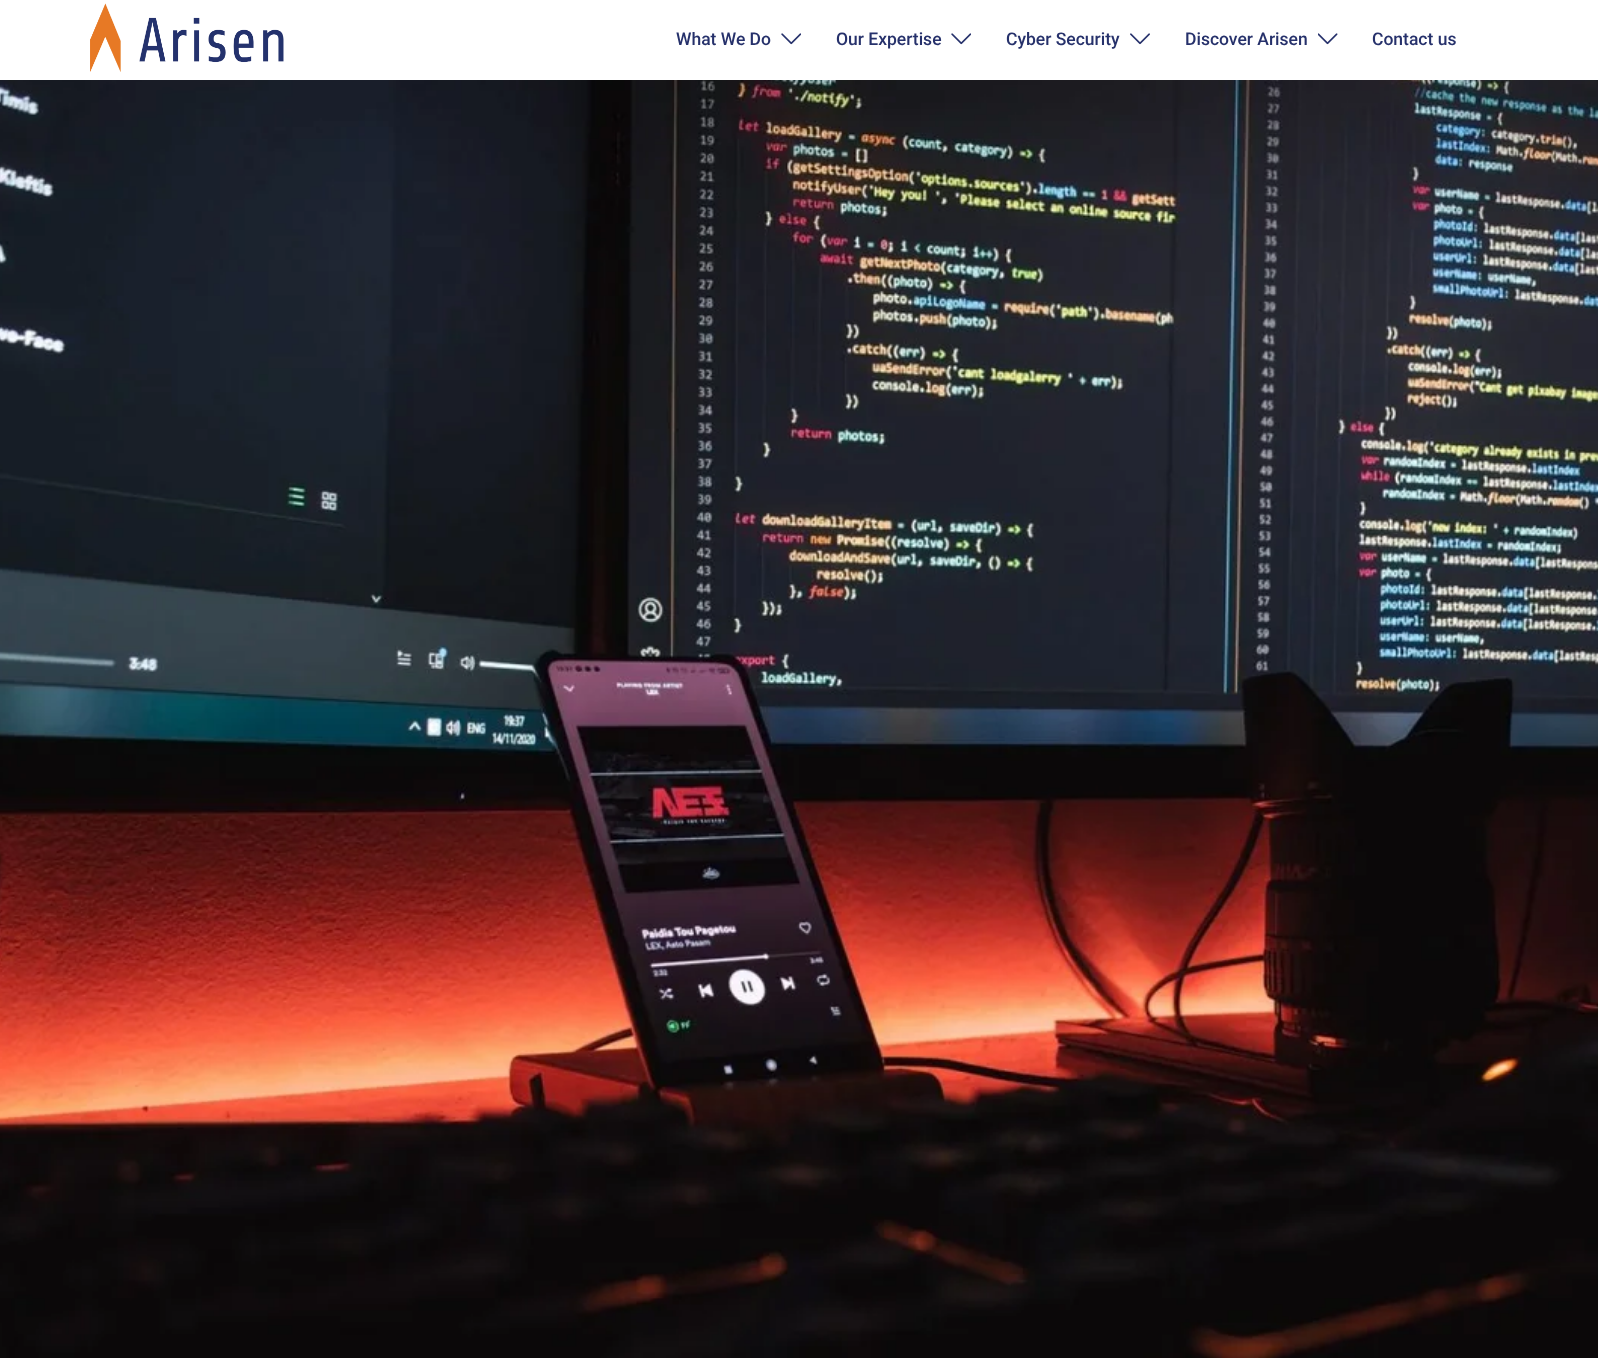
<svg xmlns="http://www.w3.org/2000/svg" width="1598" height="1358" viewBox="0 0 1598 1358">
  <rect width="100%" height="100%" fill="#fff"/>
  <image x="90" y="3" width="194" height="69" href="img/1.png"/>
  <image x="781" y="33" width="20" height="12" href="img/2.png"/>
  <image x="951" y="33" width="20" height="12" href="img/2.png"/>
  <image x="1130" y="33" width="20" height="12" href="img/3.png"/>
  <image x="1318" y="33" width="20" height="12" href="img/4.png"/>
  <image x="0" y="80" width="1598" height="1278" href="img/5.png"/>
  <g font-family="Roboto" font-size="17.5" font-weight="500" fill="#26316b">
    <text x="676" y="45">What We Do</text>
    <text x="836" y="45">Our Expertise</text>
    <text x="1006" y="45">Cyber Security</text>
    <text x="1185" y="45">Discover Arisen</text>
    <text x="1372" y="45">Contact us</text>
  </g>
</svg>
